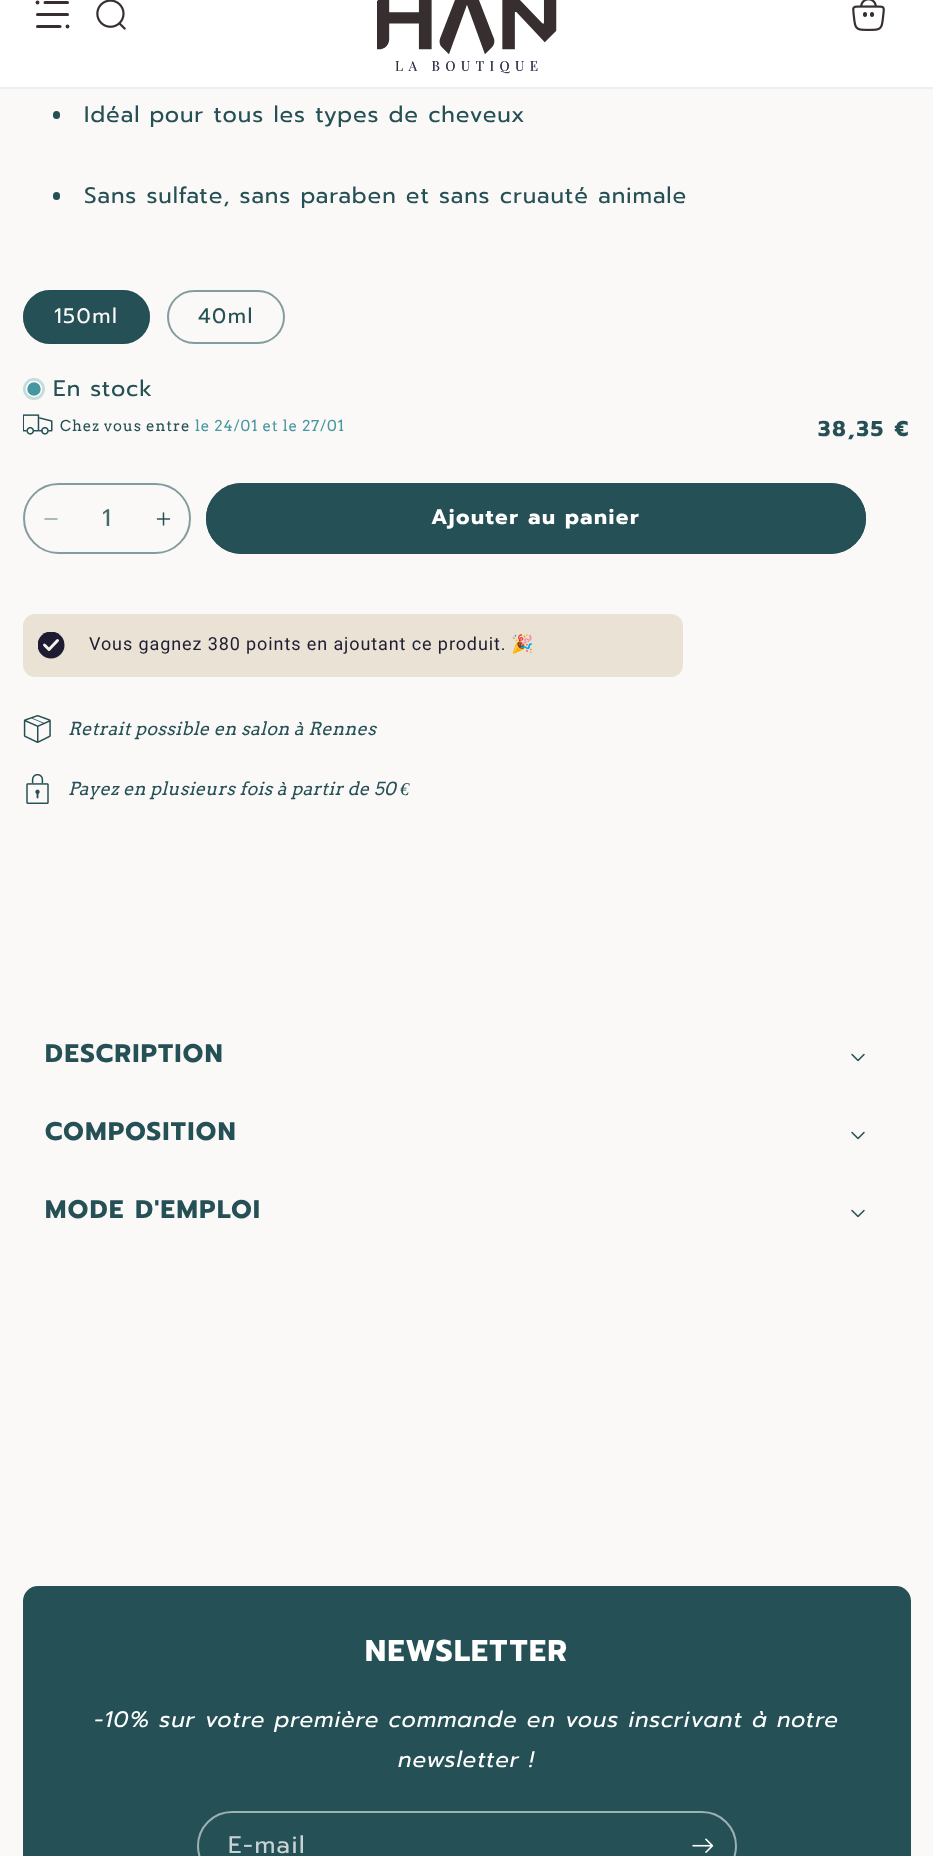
<svg xmlns="http://www.w3.org/2000/svg" width="933" height="1856" viewBox="0 0 933 1856">
  <defs>
    <clipPath id="clip1"><path d="M38 632h27v27H38z"/></clipPath>
  </defs>
  <rect width="100%" height="100%" fill="#fbf9f7"/>
  <path d="M0 0h933v87H0z" fill="#fff"/>
  <path d="M0 87h933v2H0z" fill="#efeeee"/>
  <path d="M37.5 2.5H37.5" fill="none" stroke="#372e2f" stroke-width="3.8" stroke-linecap="round"/>
  <path d="M45 2.5H67.5M37.5 14.5H67.5" fill="none" stroke="#372e2f" stroke-width="3" stroke-linecap="round"/>
  <path d="M67.5 26.5H67.5" fill="none" stroke="#372e2f" stroke-width="3.8" stroke-linecap="round"/>
  <path d="M60 26.5H37.5" fill="none" stroke="#372e2f" stroke-width="3" stroke-linecap="round"/>
  <image x="96" y="0" width="30" height="30" href="img/1.png"/>
  <image x="377" y="0" width="180" height="74" href="img/2.png"/>
  <image x="852" y="0" width="33" height="31" href="img/3.png"/>
  <rect x="53" y="111" width="7" height="8" rx="3.5" fill="#255055"/>
  <rect x="53" y="192" width="7" height="8" rx="3.5" fill="#255055"/>
  <rect x="23" y="290" width="127" height="54" rx="27" fill="#255055"/>
  <rect x="24" y="291" width="125" height="52" rx="26" fill="none" stroke="#2550558c" stroke-width="2"/>
  <rect x="168" y="291" width="116" height="52" rx="26" fill="none" stroke="#859c9e" stroke-width="2"/>
  <circle cx="34" cy="389" r="11" fill="#c5dcdd"/>
  <circle cx="34" cy="389" r="7.5" fill="#4697a0" stroke="#fff" stroke-width="1.5"/>
  <image x="23" y="414" width="30" height="21" href="img/4.png"/>
  <image x="44" y="518" width="14" height="2" href="img/5.png"/>
  <image x="156" y="512" width="15" height="14" href="img/6.png"/>
  <rect x="24" y="484" width="166" height="69" rx="34.5" fill="none" stroke="#859c9e" stroke-width="2"/>
  <rect x="206" y="483" width="660" height="71" rx="35.5" fill="#255055"/>
  <rect x="207" y="484" width="658" height="69" rx="34.5" fill="none" stroke="#255055" stroke-width="2"/>
  <rect x="23" y="614" width="660" height="63" rx="12" fill="#eae3d5"/>
  <g clip-path="url(#clip1)">
    <circle cx="51" cy="645" r="13.5" fill="#1e1c31"/>
  </g>
  <path d="M44.5 645L49 649.5L57.5 640.5" fill="none" stroke="#f1f1f1" stroke-width="3" stroke-linecap="round" stroke-linejoin="round"/>
  <image x="23" y="714" width="28" height="29" href="img/7.png"/>
  <image x="26" y="774" width="23" height="30" href="img/8.png"/>
  <image x="851" y="1053" width="14" height="9" href="img/9.png"/>
  <image x="851" y="1131" width="14" height="9" href="img/9.png"/>
  <image x="851" y="1209" width="14" height="9" href="img/9.png"/>
  <rect x="23" y="1586" width="888" height="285" rx="15" fill="#255055"/>
  <rect x="198" y="1812" width="538" height="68" rx="34" fill="none" stroke="#9db0b3" stroke-width="2"/>
  <image x="692" y="1838" width="22" height="15" href="img/10.png"/>
  <g font-family="Prompt" font-size="22.5" letter-spacing="0.9" fill="#255055">
    <text x="84" y="122">Idéal pour tous les types de cheveux</text>
    <text x="84" y="203">Sans sulfate, sans paraben et sans cruauté animale</text>
  </g>
  <text x="54" y="323" font-family="Prompt" font-size="21" letter-spacing="1.5" fill="#fbf9f7">150ml</text>
  <text x="198" y="323" font-family="Prompt" font-size="21" letter-spacing="1.5" fill="#255055">40ml</text>
  <text x="53" y="396" font-family="Prompt" font-size="22.5" letter-spacing="0.9" fill="#255055">En stock</text>
  <text x="60" y="431" font-family="Arvo" font-size="15" letter-spacing="0.9" fill="#255055">Chez vous entre</text>
  <text x="195" y="431" font-family="Arvo" font-size="15" letter-spacing="0.9" fill="#4697a0">le 24/01 et le 27/01</text>
  <text x="818" y="436" font-family="Prompt" font-size="21.5" font-weight="bold" letter-spacing="2" fill="#255055">38,35 €</text>
  <text x="102" y="526" font-family="Prompt" font-size="24" fill="#45696d">1</text>
  <text x="431" y="524" font-family="Prompt" font-size="21" font-weight="bold" letter-spacing="1.5" fill="#fff">Ajouter au panier</text>
  <text x="89" y="650" font-family="Roboto" font-size="18" letter-spacing="0.9" fill="#1e1c31">Vous gagnez 380 points en ajoutant ce produit.</text>
  <text x="511" y="650" font-family="Noto Color Emoji" font-size="18" letter-spacing="0.9" fill="#1e1c31">🎉</text>
  <g font-family="Arvo" font-size="18" font-style="italic" letter-spacing="0.3" fill="#255055">
    <text x="68" y="735">Retrait possible en salon à Rennes</text>
    <text x="68" y="795">Payez en plusieurs fois à partir de 50</text>
  </g>
  <text x="400" y="795" font-family="Liberation Serif" font-size="18" font-style="italic" letter-spacing="0.3" fill="#255055">€</text>
  <g font-family="Prompt" font-size="25.5" font-weight="bold" letter-spacing="1.5" fill="#255055">
    <text x="45" y="1062">DESCRIPTION</text>
    <text x="45" y="1140">COMPOSITION</text>
    <text x="45" y="1218">MODE D'EMPLOI</text>
  </g>
  <text x="365" y="1661" font-family="Prompt" font-size="30" font-weight="bold" letter-spacing="1.5" fill="#fff">NEWSLETTER</text>
  <g font-family="Prompt" font-size="22.5" font-style="italic" letter-spacing="0.9" fill="#fff">
    <text x="94" y="1727">-10% sur votre première commande en vous inscrivant à notre</text>
    <text x="398" y="1767">newsletter !</text>
  </g>
  <text x="228" y="1853" font-family="Prompt" font-size="24" letter-spacing="1.5" fill="#c9d3d5">E-mail</text>
</svg>
